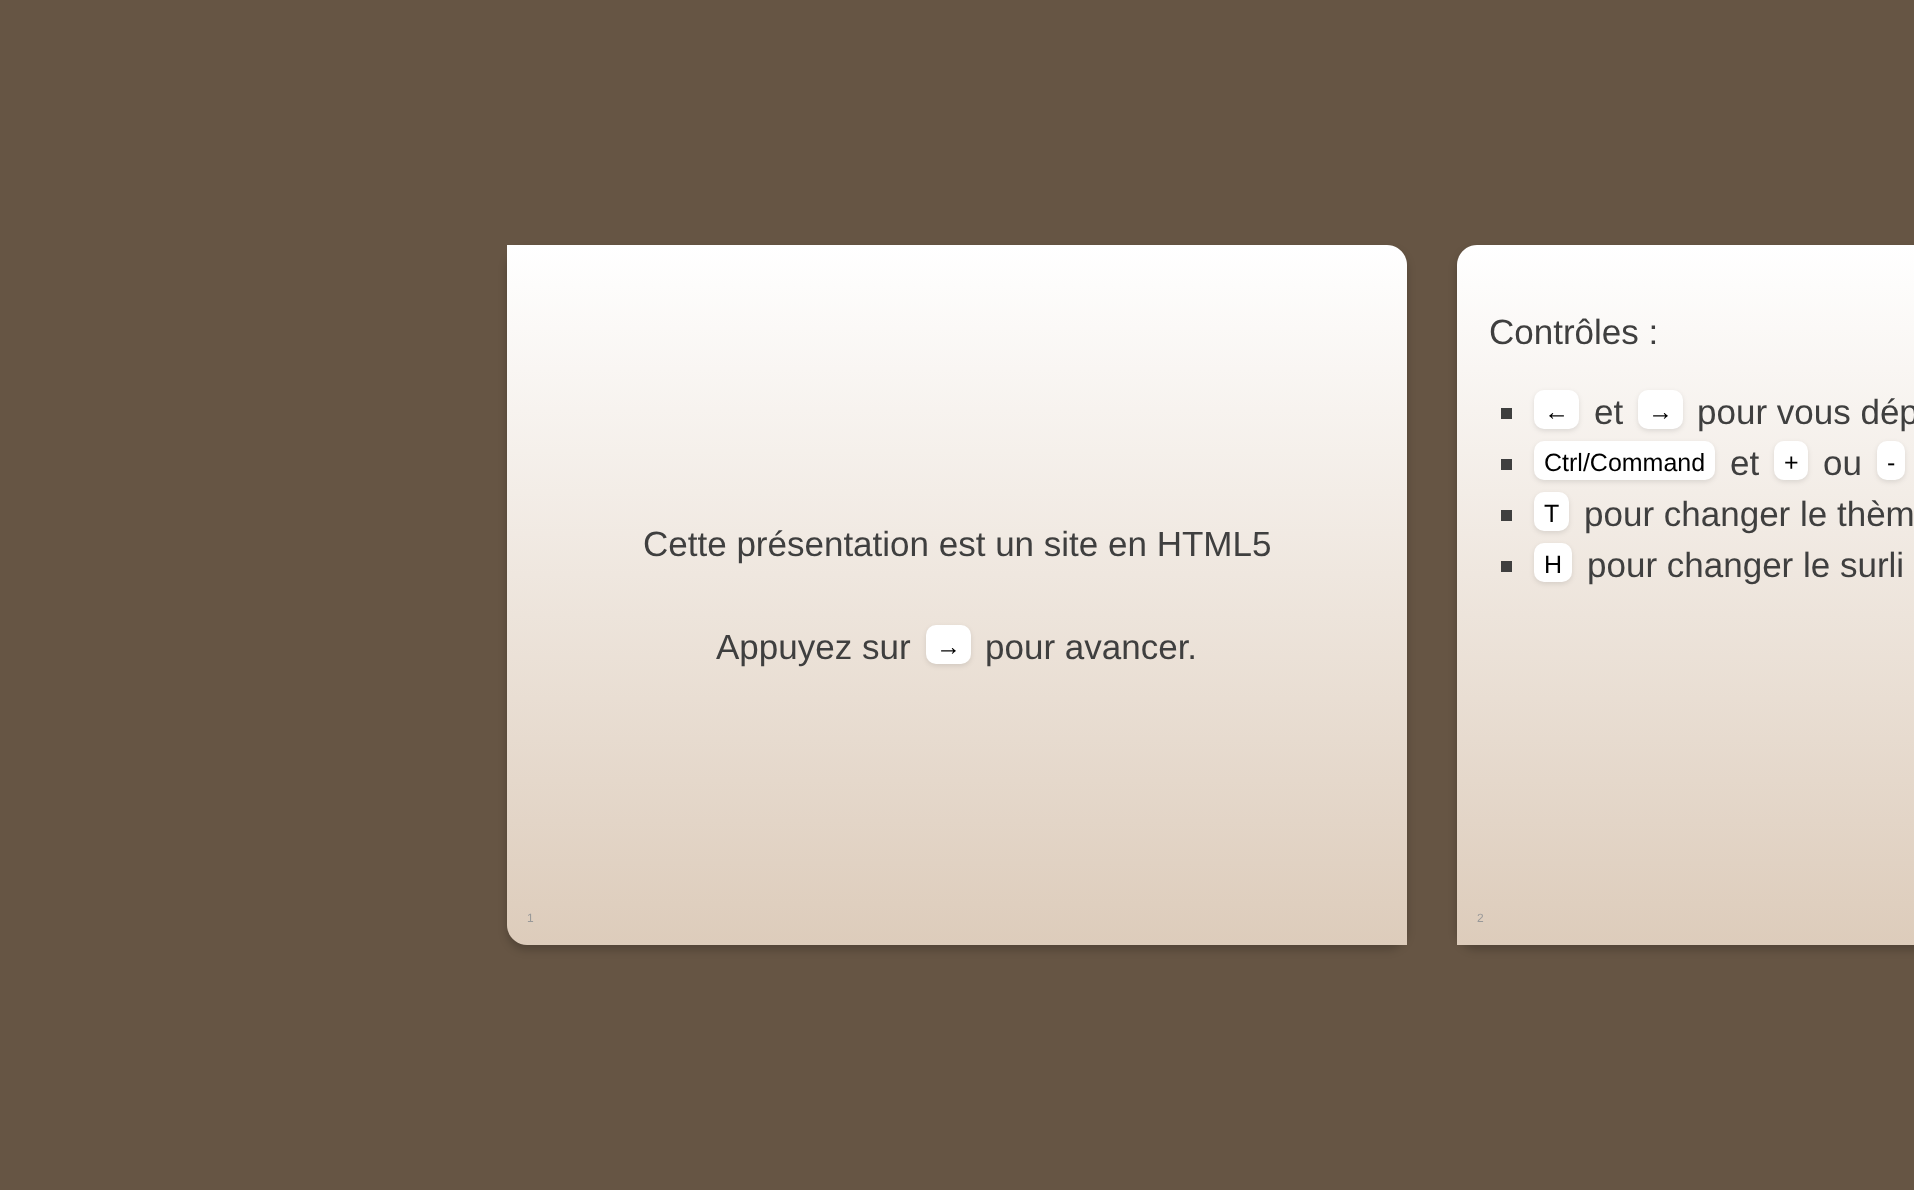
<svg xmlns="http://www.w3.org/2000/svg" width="1914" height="1190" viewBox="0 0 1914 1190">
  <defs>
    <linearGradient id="g1" gradientUnits="userSpaceOnUse" x1="507" y1="945" x2="507" y2="245"><stop offset="0" stop-color="#dcb"/><stop offset="1" stop-color="#fff"/></linearGradient>
    <linearGradient id="g2" gradientUnits="userSpaceOnUse" x1="1457" y1="945" x2="1457" y2="245"><stop offset="0" stop-color="#dcb"/><stop offset="1" stop-color="#fff"/></linearGradient>
  </defs>
  <rect width="100%" height="100%" fill="#654"/>
  <rect x="507" y="250" width="900" height="700" rx="20" fill="#00000033" filter="blur(4px)"/>
  <path d="M507 245H1387C1398 245 1407 254 1407 265V945H527C516 945 507 936 507 925Z" fill="url(#g1)"/>
  <rect x="926" y="627" width="45" height="39" rx="10" fill="#0000001a" filter="blur(2.5px)"/>
  <rect x="926" y="625" width="45" height="39" rx="10" fill="#fff"/>
  <rect x="1457" y="250" width="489" height="700" rx="20" fill="#00000033" filter="blur(4px)"/>
  <path d="M1477 245H1914V945H1457V265C1457 254 1466 245 1477 245Z" fill="url(#g2)"/>
  <path d="M1501 408h11v11H1501z" fill="#3f3f3f"/>
  <rect x="1534" y="392" width="45" height="39" rx="10" fill="#0000001a" filter="blur(2.5px)"/>
  <rect x="1534" y="390" width="45" height="39" rx="10" fill="#fff"/>
  <rect x="1638" y="392" width="45" height="39" rx="10" fill="#0000001a" filter="blur(2.5px)"/>
  <rect x="1638" y="390" width="45" height="39" rx="10" fill="#fff"/>
  <path d="M1501 459h11v11H1501z" fill="#3f3f3f"/>
  <rect x="1534" y="443" width="181" height="39" rx="10" fill="#0000001a" filter="blur(2.5px)"/>
  <rect x="1534" y="441" width="181" height="39" rx="10" fill="#fff"/>
  <rect x="1774" y="443" width="34" height="39" rx="10" fill="#0000001a" filter="blur(2.5px)"/>
  <rect x="1774" y="441" width="34" height="39" rx="10" fill="#fff"/>
  <rect x="1877" y="443" width="28" height="39" rx="10" fill="#0000001a" filter="blur(2.5px)"/>
  <rect x="1877" y="441" width="28" height="39" rx="10" fill="#fff"/>
  <path d="M1501 510h11v11H1501z" fill="#3f3f3f"/>
  <rect x="1534" y="494" width="35" height="39" rx="10" fill="#0000001a" filter="blur(2.5px)"/>
  <rect x="1534" y="492" width="35" height="39" rx="10" fill="#fff"/>
  <path d="M1501 561h11v11H1501z" fill="#3f3f3f"/>
  <rect x="1534" y="545" width="38" height="39" rx="10" fill="#0000001a" filter="blur(2.5px)"/>
  <rect x="1534" y="543" width="38" height="39" rx="10" fill="#fff"/>
  <g font-family="Liberation Sans" font-size="35" fill="#3f3f3f">
    <text x="643" y="556">Cette présentation est un site en HTML5</text>
    <text x="716" y="659">Appuyez sur</text>
  </g>
  <text x="936" y="655" font-family="Liberation Sans" font-size="25" fill="#000">→</text>
  <text x="985" y="659" font-family="Liberation Sans" font-size="35" fill="#3f3f3f">pour avancer.</text>
  <text x="527" y="922" font-family="Liberation Sans" font-size="12" fill="#999">1</text>
  <text x="1489" y="344" font-family="Liberation Sans" font-size="35" fill="#3f3f3f">Contrôles :</text>
  <text x="1544" y="420" font-family="Liberation Sans" font-size="25" fill="#000">←</text>
  <text x="1594" y="424" font-family="Liberation Sans" font-size="35" fill="#3f3f3f">et</text>
  <text x="1648" y="420" font-family="Liberation Sans" font-size="25" fill="#000">→</text>
  <text x="1697" y="424" font-family="Liberation Sans" font-size="35" fill="#3f3f3f">pour vous dép</text>
  <text x="1544" y="471" font-family="Liberation Sans" font-size="25" fill="#000">Ctrl/Command</text>
  <text x="1730" y="475" font-family="Liberation Sans" font-size="35" fill="#3f3f3f">et</text>
  <text x="1784" y="471" font-family="Liberation Sans" font-size="25" fill="#000">+</text>
  <text x="1823" y="475" font-family="Liberation Sans" font-size="35" fill="#3f3f3f">ou</text>
  <g font-family="Liberation Sans" font-size="25" fill="#000">
    <text x="1887" y="471">-</text>
    <text x="1544" y="522">T</text>
  </g>
  <text x="1584" y="526" font-family="Liberation Sans" font-size="35" fill="#3f3f3f">pour changer le thèm</text>
  <text x="1544" y="573" font-family="Liberation Sans" font-size="25" fill="#000">H</text>
  <text x="1587" y="577" font-family="Liberation Sans" font-size="35" fill="#3f3f3f">pour changer le surli</text>
  <text x="1477" y="922" font-family="Liberation Sans" font-size="12" fill="#999">2</text>
</svg>
